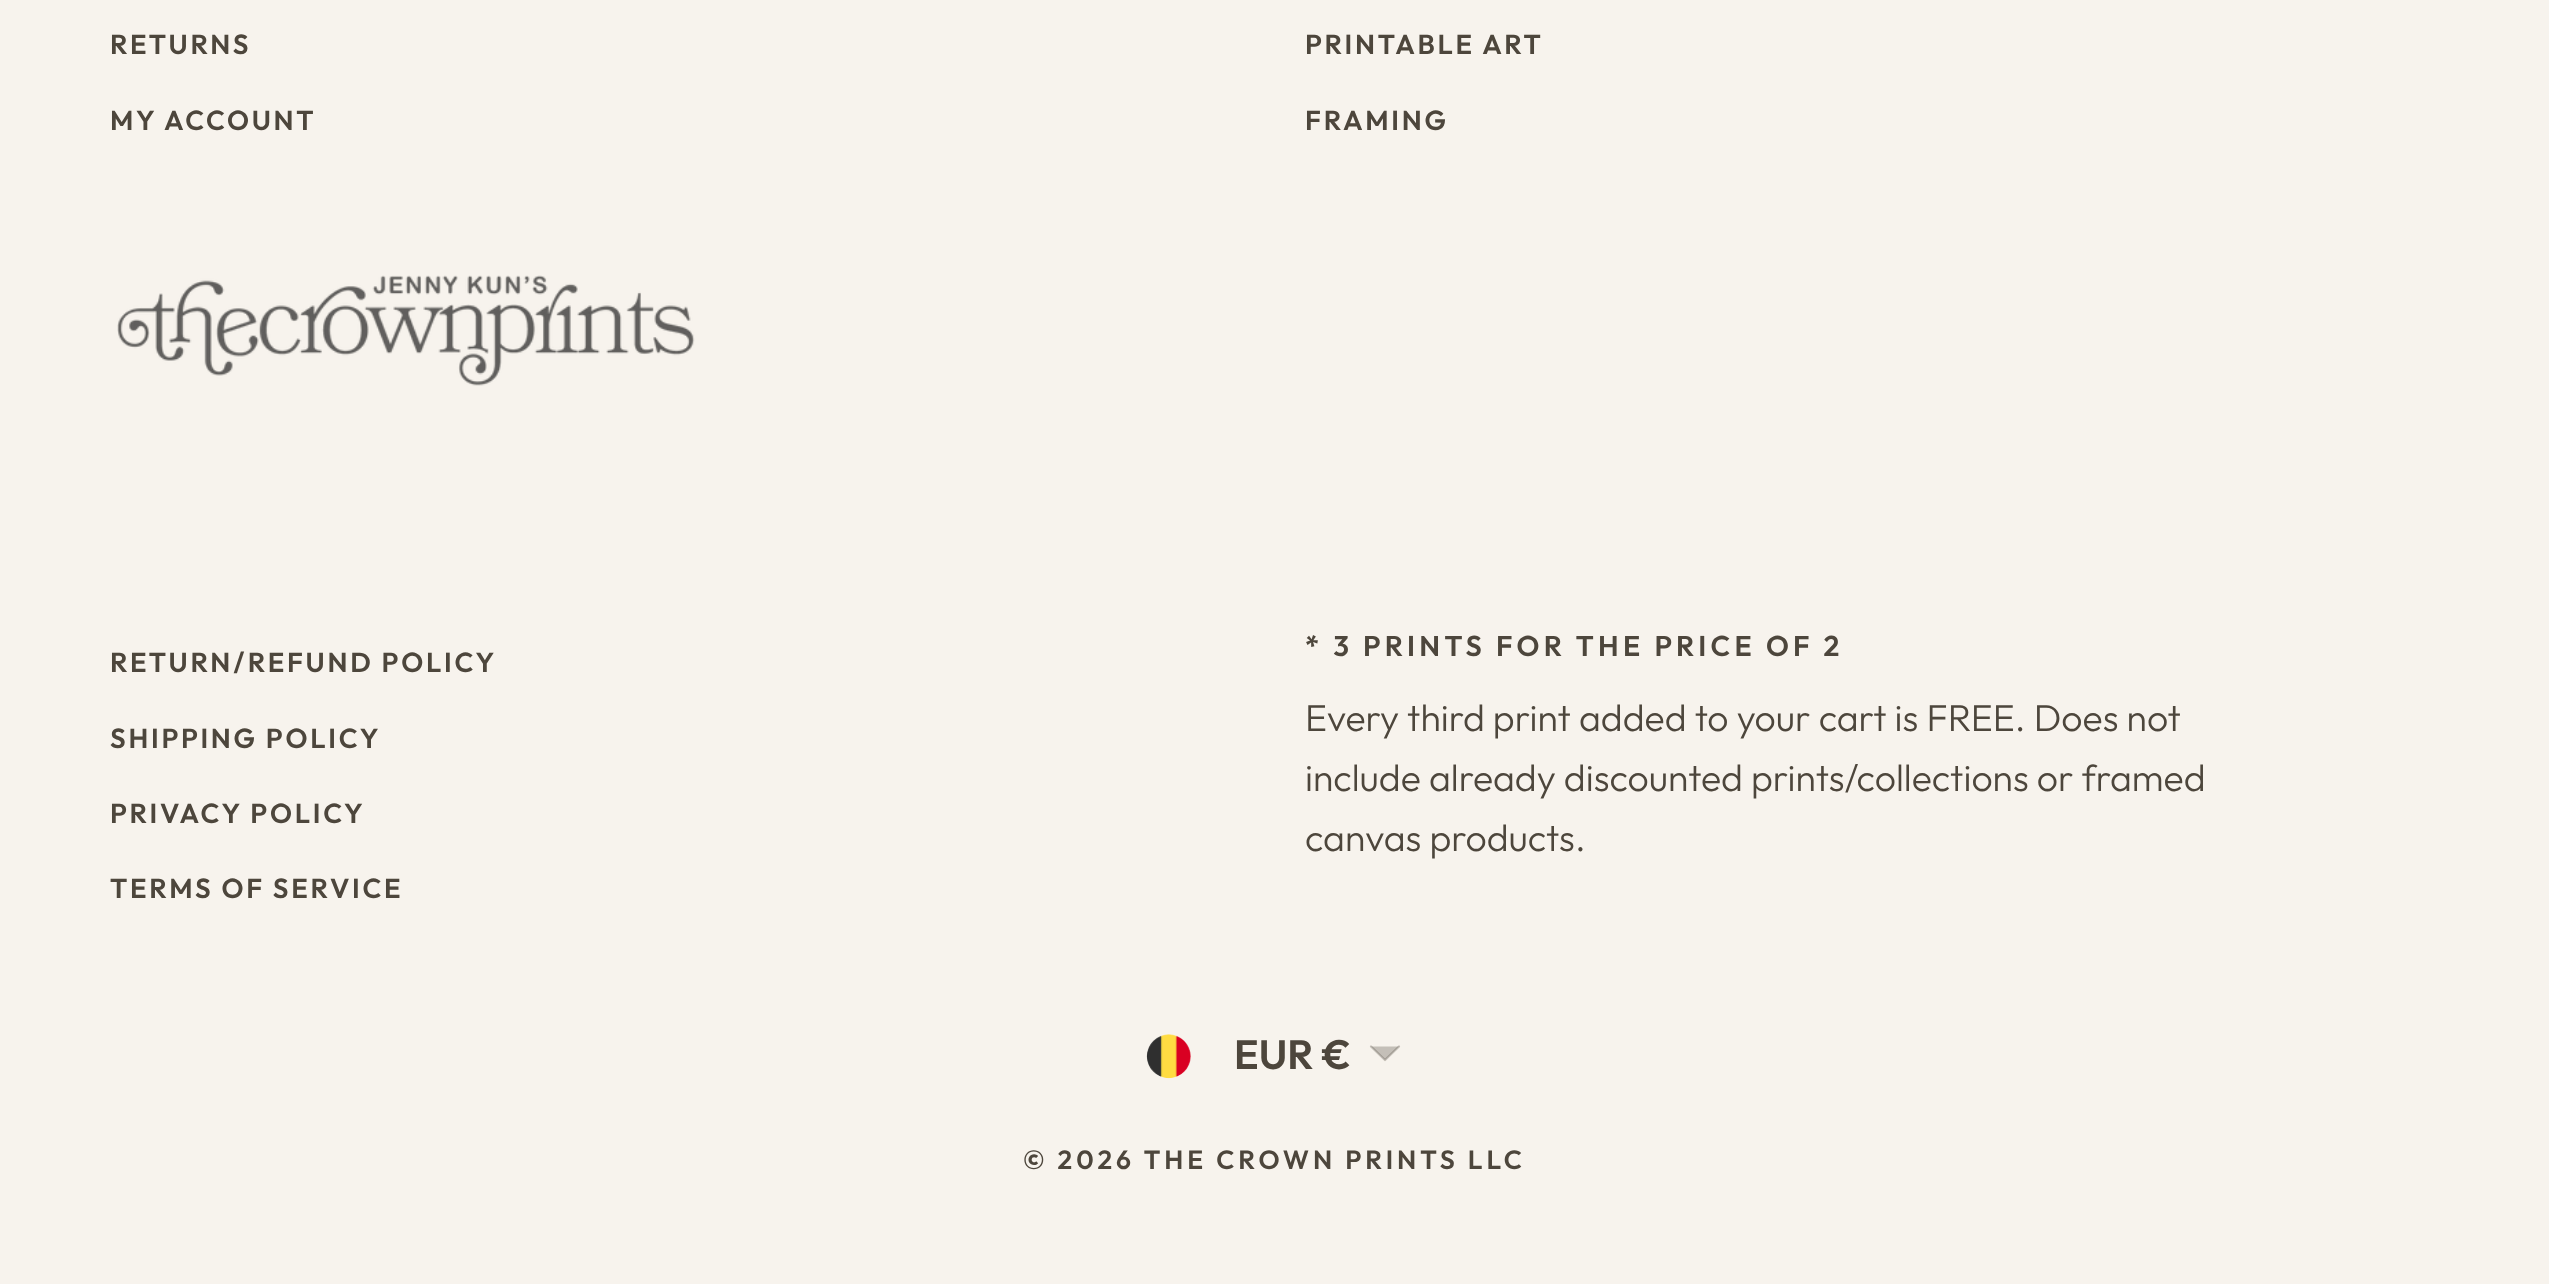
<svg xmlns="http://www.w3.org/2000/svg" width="2549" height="1284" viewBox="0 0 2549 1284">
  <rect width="100%" height="100%" fill="#f7f3ed"/>
  <image x="117" y="275" width="578" height="111" href="img/1.png"/>
  <image x="1146" y="1034" width="45" height="45" href="img/2.png"/>
  <path d="M1371 1046.5L1385 1060L1399 1046.5" fill="#c4bfb8" stroke="#4d463c4d" stroke-width="2.2" stroke-linecap="round" stroke-linejoin="round"/>
  <g font-family="Outfit" font-size="27.5" font-weight="600" letter-spacing="2.75" fill="#4d463c">
    <text x="110" y="54">RETURNS</text>
    <text x="110" y="130">MY ACCOUNT</text>
    <text x="1305" y="54">PRINTABLE ART</text>
    <text x="1305" y="130">FRAMING</text>
    <text x="110" y="672">RETURN/REFUND POLICY</text>
    <text x="110" y="748">SHIPPING POLICY</text>
    <text x="110" y="823">PRIVACY POLICY</text>
    <text x="110" y="898">TERMS OF SERVICE</text>
  </g>
  <text x="1305" y="656" font-family="Outfit" font-size="28.6" font-weight="600" letter-spacing="4.3" fill="#4d463c">* 3 PRINTS FOR THE PRICE OF 2</text>
  <g font-family="Outfit" font-size="37.4" font-weight="300" fill="#4d463c">
    <text x="1305" y="731">Every third print added to your cart is FREE. Does not</text>
    <text x="1305" y="791">include already discounted prints/collections or framed</text>
    <text x="1305" y="851">canvas products.</text>
  </g>
  <text x="1234" y="1069" font-family="Outfit" font-size="41" font-weight="600" fill="#4d463c">EUR €</text>
  <text x="1023" y="1169" font-family="Outfit" font-size="26.4" font-weight="600" letter-spacing="3.95" fill="#4d463c">© 2026 THE CROWN PRINTS LLC</text>
</svg>
